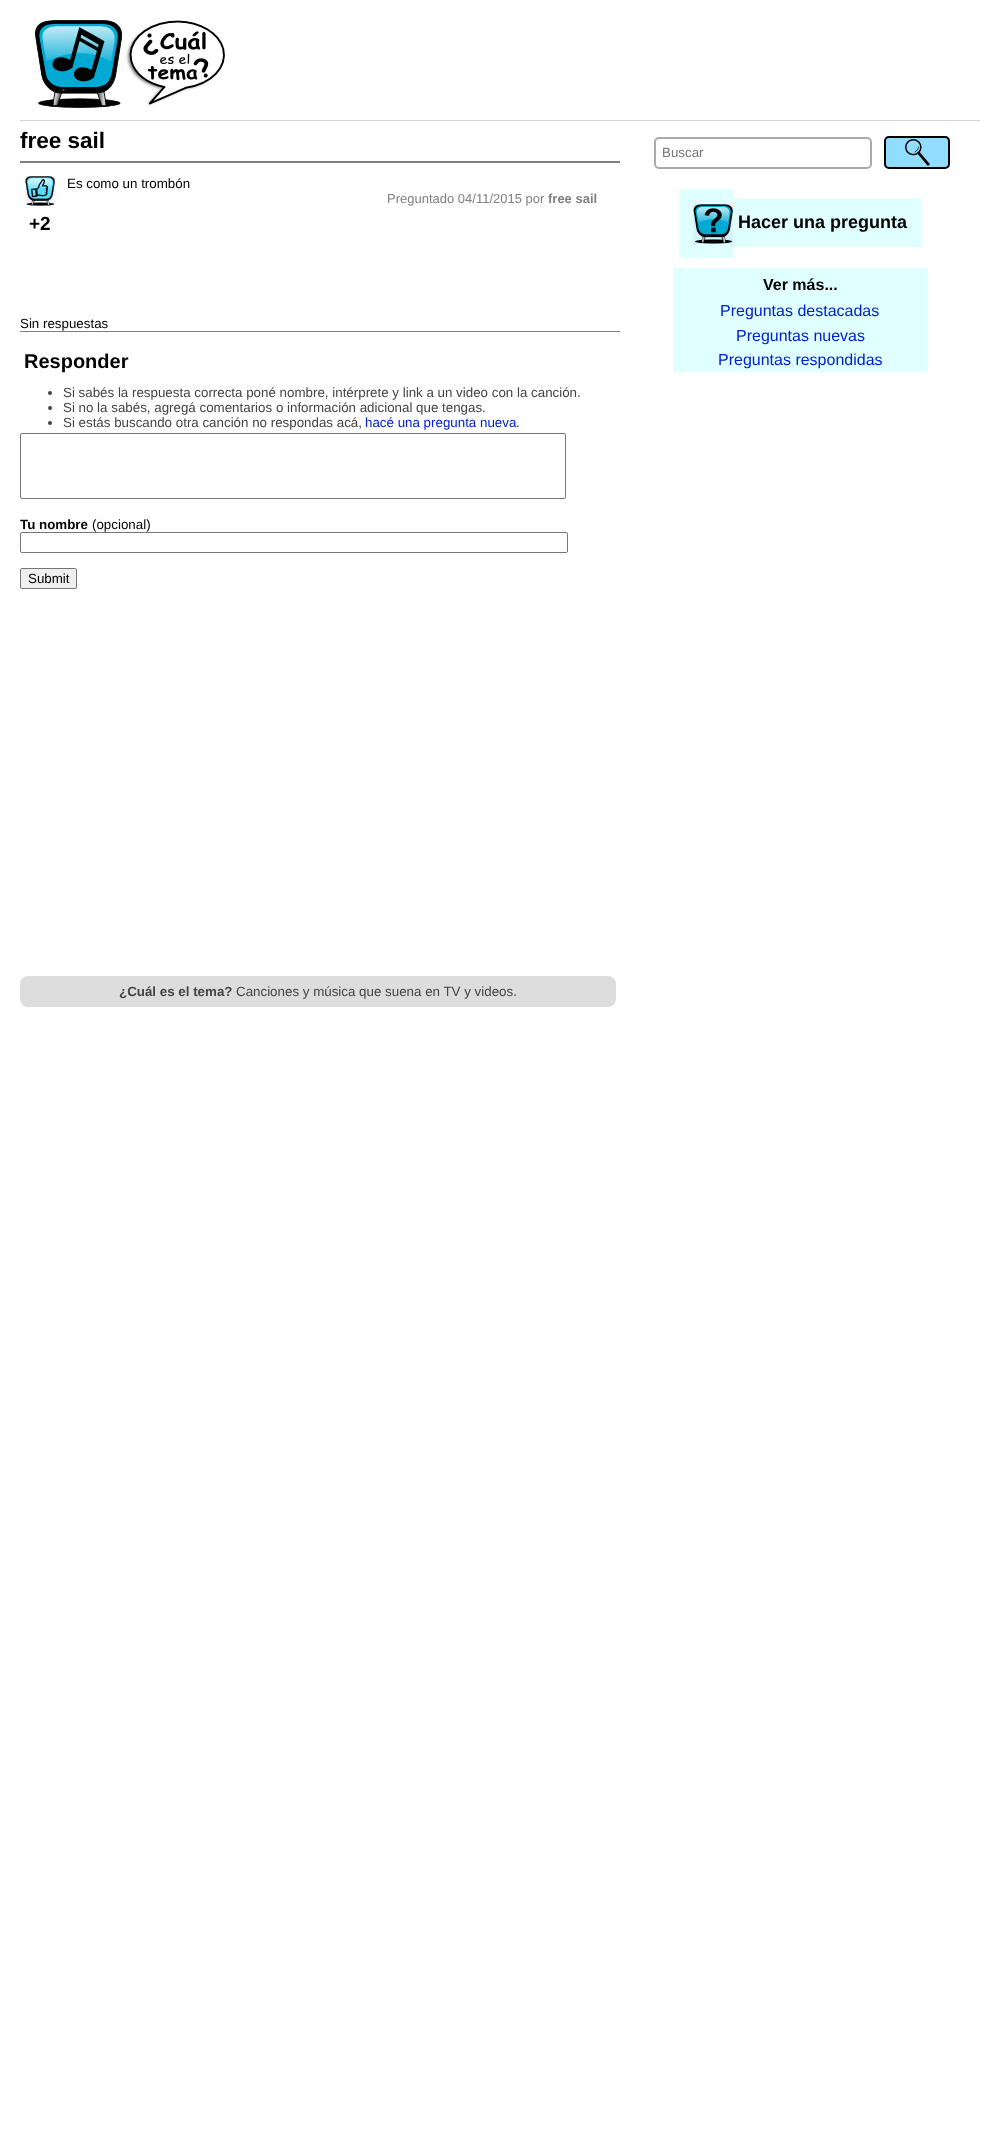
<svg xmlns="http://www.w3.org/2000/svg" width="1000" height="2138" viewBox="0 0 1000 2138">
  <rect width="100%" height="100%" fill="#fff"/>
  <path d="M20 120h960v1H20z" fill="#d3d3d3"/>
  <image x="35" y="20" width="190" height="88" href="img/1.png"/>
  <path d="M20 161h600v2H20z" fill="#808080"/>
  <path d="M20 331h600v1H20z" fill="#808080"/>
  <image x="25" y="176" width="30" height="30" href="img/2.png"/>
  <circle cx="50" cy="393" r="2" fill="#444"/>
  <circle cx="50" cy="408" r="2" fill="#444"/>
  <circle cx="50" cy="423" r="2" fill="#444"/>
  <rect x="20.5" y="433.5" width="545" height="65" rx="1.5" fill="none" stroke="#767676"/>
  <rect x="20.5" y="532.5" width="547" height="20" rx="1.5" fill="none" stroke="#767676"/>
  <rect x="20.5" y="568.5" width="56" height="20" rx="1.5" fill="#efefef" stroke="#767676"/>
  <rect x="655" y="138" width="216" height="30" rx="4" fill="none" stroke="#aaa" stroke-width="2"/>
  <rect x="884" y="136" width="66" height="33" rx="5" fill="#90ddff"/>
  <image x="905" y="139" width="25" height="27" href="img/3.png"/>
  <rect x="885" y="137" width="64" height="31" rx="4" fill="none" stroke="#000" stroke-width="2"/>
  <path d="M679 189h54v69H679z" fill="#e0ffff"/>
  <image x="693" y="204" width="40" height="40" href="img/4.png"/>
  <path d="M733 198h188v49H733z" fill="#e0ffff"/>
  <path d="M673 268h254v104H673z" fill="#e0ffff"/>
  <rect x="20" y="976" width="596" height="31" rx="8" fill="#ddd"/>
  <text x="20" y="148" font-family="Liberation Sans" font-size="22.5" font-weight="bold" fill="#000">free sail</text>
  <text x="67" y="188" font-family="Liberation Sans" font-size="13.35" fill="#000">Es como un trombón</text>
  <text x="387" y="203" font-family="Liberation Sans" font-size="13" fill="#808080">Preguntado 04/11/2015 por</text>
  <text x="548" y="203" font-family="Liberation Sans" font-size="13" font-weight="bold" fill="#808080">free sail</text>
  <text x="29" y="230" font-family="Liberation Sans" font-size="19" font-weight="bold" fill="#000">+2</text>
  <text x="20" y="328" font-family="Liberation Sans" font-size="13.35" fill="#000">Sin respuestas</text>
  <text x="24" y="368" font-family="Liberation Sans" font-size="20" font-weight="bold" fill="#000">Responder</text>
  <g font-family="Liberation Sans" font-size="13.35" fill="#444">
    <text x="63" y="397">Si sabés la respuesta correcta poné nombre, intérprete y link a un video con la canción.</text>
    <text x="63" y="412">Si no la sabés, agregá comentarios o información adicional que tengas.</text>
    <text x="63" y="427">Si estás buscando otra canción no respondas acá,</text>
  </g>
  <text x="365" y="427" font-family="Liberation Sans" font-size="13.35" fill="#02c">hacé una pregunta nueva</text>
  <text x="516" y="427" font-family="Liberation Sans" font-size="13.35" fill="#444">.</text>
  <text x="20" y="529" font-family="Liberation Sans" font-size="13.35" font-weight="bold" fill="#000">Tu nombre</text>
  <g font-family="Liberation Sans" font-size="13.35" fill="#000">
    <text x="92" y="529">(opcional)</text>
    <text x="28" y="583">Submit</text>
  </g>
  <text x="662" y="157" font-family="Liberation Sans" font-size="13.35" fill="#757575">Buscar</text>
  <text x="738" y="228" font-family="Liberation Sans" font-size="18" font-weight="bold" fill="#000">Hacer una pregunta</text>
  <text x="763" y="290" font-family="Liberation Sans" font-size="16" font-weight="bold" fill="#000">Ver más...</text>
  <g font-family="Liberation Sans" font-size="16" fill="#02c">
    <text x="720" y="316">Preguntas destacadas</text>
    <text x="736" y="341">Preguntas nuevas</text>
    <text x="718" y="365">Preguntas respondidas</text>
  </g>
  <text x="119" y="996" font-family="Liberation Sans" font-size="13.35" font-weight="bold" fill="#444">¿Cuál es el tema?</text>
  <text x="236" y="996" font-family="Liberation Sans" font-size="13.35" fill="#444">Canciones y música que suena en TV y videos.</text>
</svg>
